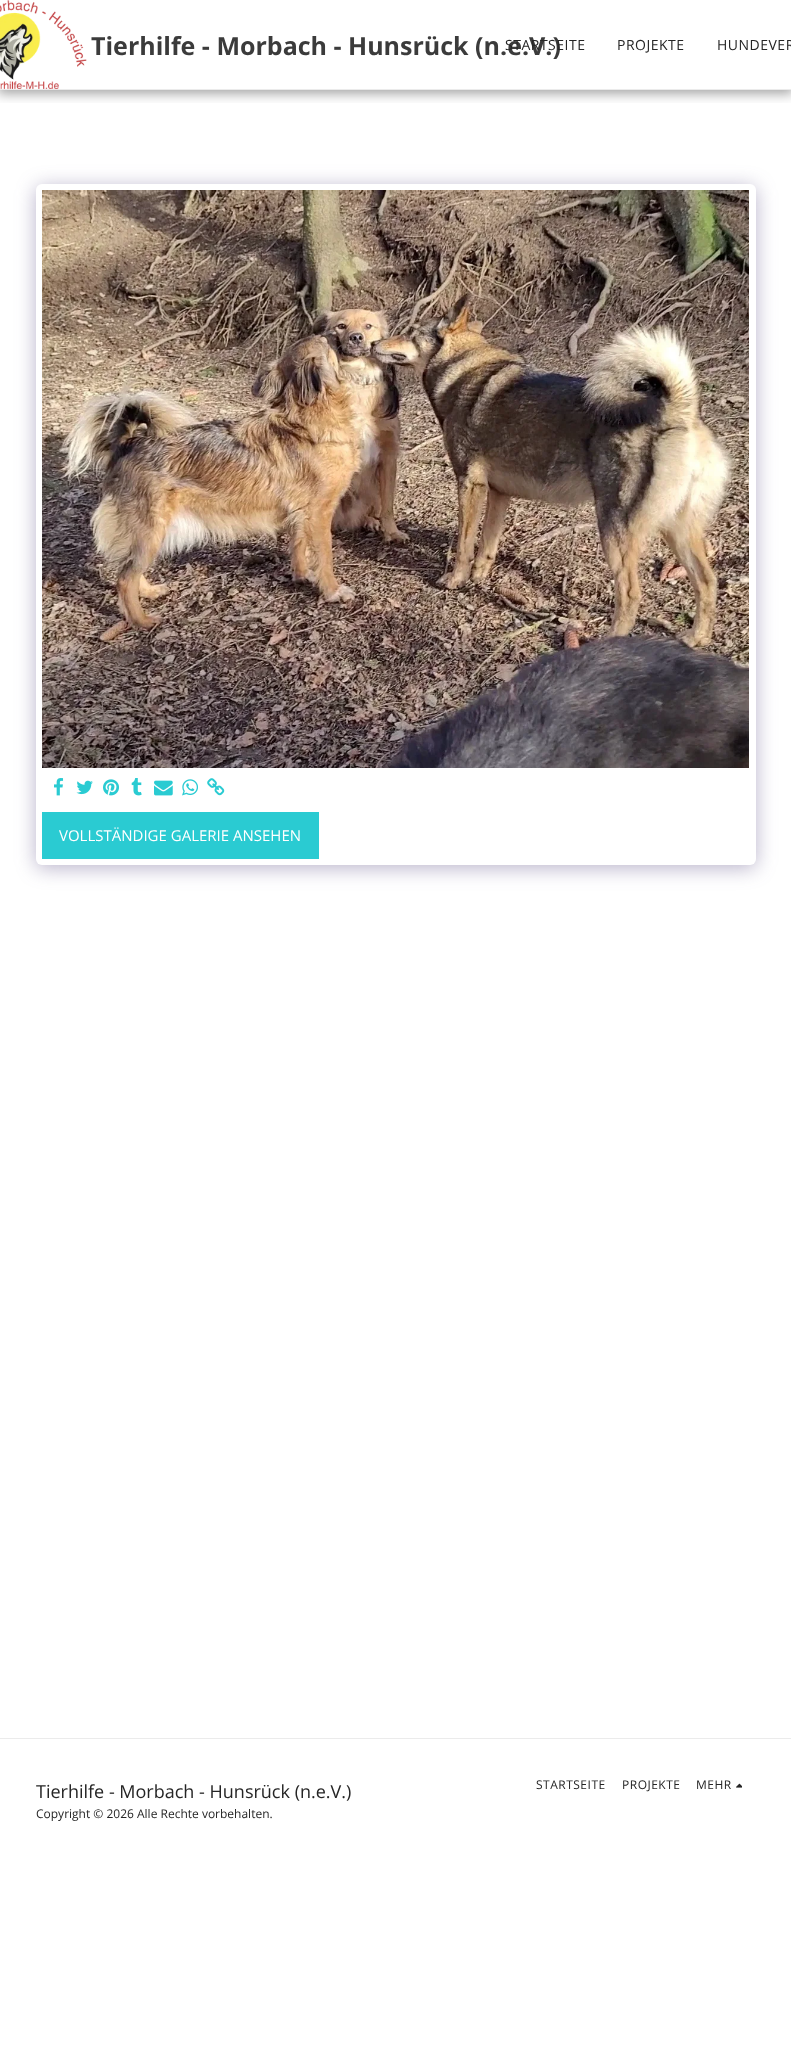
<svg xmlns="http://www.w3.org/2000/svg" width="791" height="2060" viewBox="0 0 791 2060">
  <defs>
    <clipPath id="clip1"><path d="M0 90h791v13H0z"/></clipPath>
  </defs>
  <rect width="100%" height="100%" fill="#fff"/>
  <g clip-path="url(#clip1)">
    <path d="M-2 0h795v94H-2z" fill="#00000059" filter="blur(6px)"/>
  </g>
  <path d="M0 89h791v1H0z" fill="#ebebeb"/>
  <image x="0" y="0" width="87" height="89" href="img/1.png"/>
  <rect x="36" y="187" width="720" height="681" rx="6" fill="#4d3f7a66" filter="blur(10px)"/>
  <rect x="36" y="184" width="720" height="681" rx="6" fill="#fff"/>
  <image x="42" y="190" width="707" height="578" href="img/2.png"/>
  <image x="54" y="778" width="10" height="18" href="img/3.png"/>
  <image x="76" y="780" width="17" height="15" href="img/4.png"/>
  <image x="103" y="779" width="16" height="17" href="img/5.png"/>
  <image x="131" y="778" width="11" height="18" href="img/6.png"/>
  <image x="154" y="780" width="19" height="16" href="img/7.png"/>
  <image x="182" y="779" width="16" height="17" href="img/8.png"/>
  <image x="207" y="778" width="18" height="18" href="img/9.png"/>
  <path d="M42 812h277v47H42z" fill="#2acbd2"/>
  <path d="M0 1738h791v1H0z" fill="#ebebeb"/>
  <image x="736" y="1783" width="6" height="5" href="img/10.png"/>
  <text x="91" y="55" font-family="Open Sans" font-size="25" font-weight="bold" fill="#3b3b3b">Tierhilfe - Morbach - Hunsrück (n.e.V.)</text>
  <g font-family="Open Sans" font-size="14" letter-spacing="0.5" fill="#252525">
    <text x="505" y="50">STARTSEITE</text>
    <text x="617" y="50">PROJEKTE</text>
    <text x="717" y="50">HUNDEVER</text>
  </g>
  <text x="59" y="841" font-family="Open Sans" font-size="15" fill="#fff">VOLLSTÄNDIGE GALERIE ANSEHEN</text>
  <text x="36" y="1798" font-family="Open Sans" font-size="18" fill="#252525">Tierhilfe - Morbach - Hunsrück (n.e.V.)</text>
  <text x="36" y="1818" font-family="Open Sans" font-size="12" fill="#252525">Copyright © 2026 Alle Rechte vorbehalten.</text>
  <g font-family="Open Sans" font-size="12" letter-spacing="0.5" fill="#252525">
    <text x="536" y="1789">STARTSEITE</text>
    <text x="622" y="1789">PROJEKTE</text>
    <text x="696" y="1789">MEHR</text>
  </g>
</svg>
